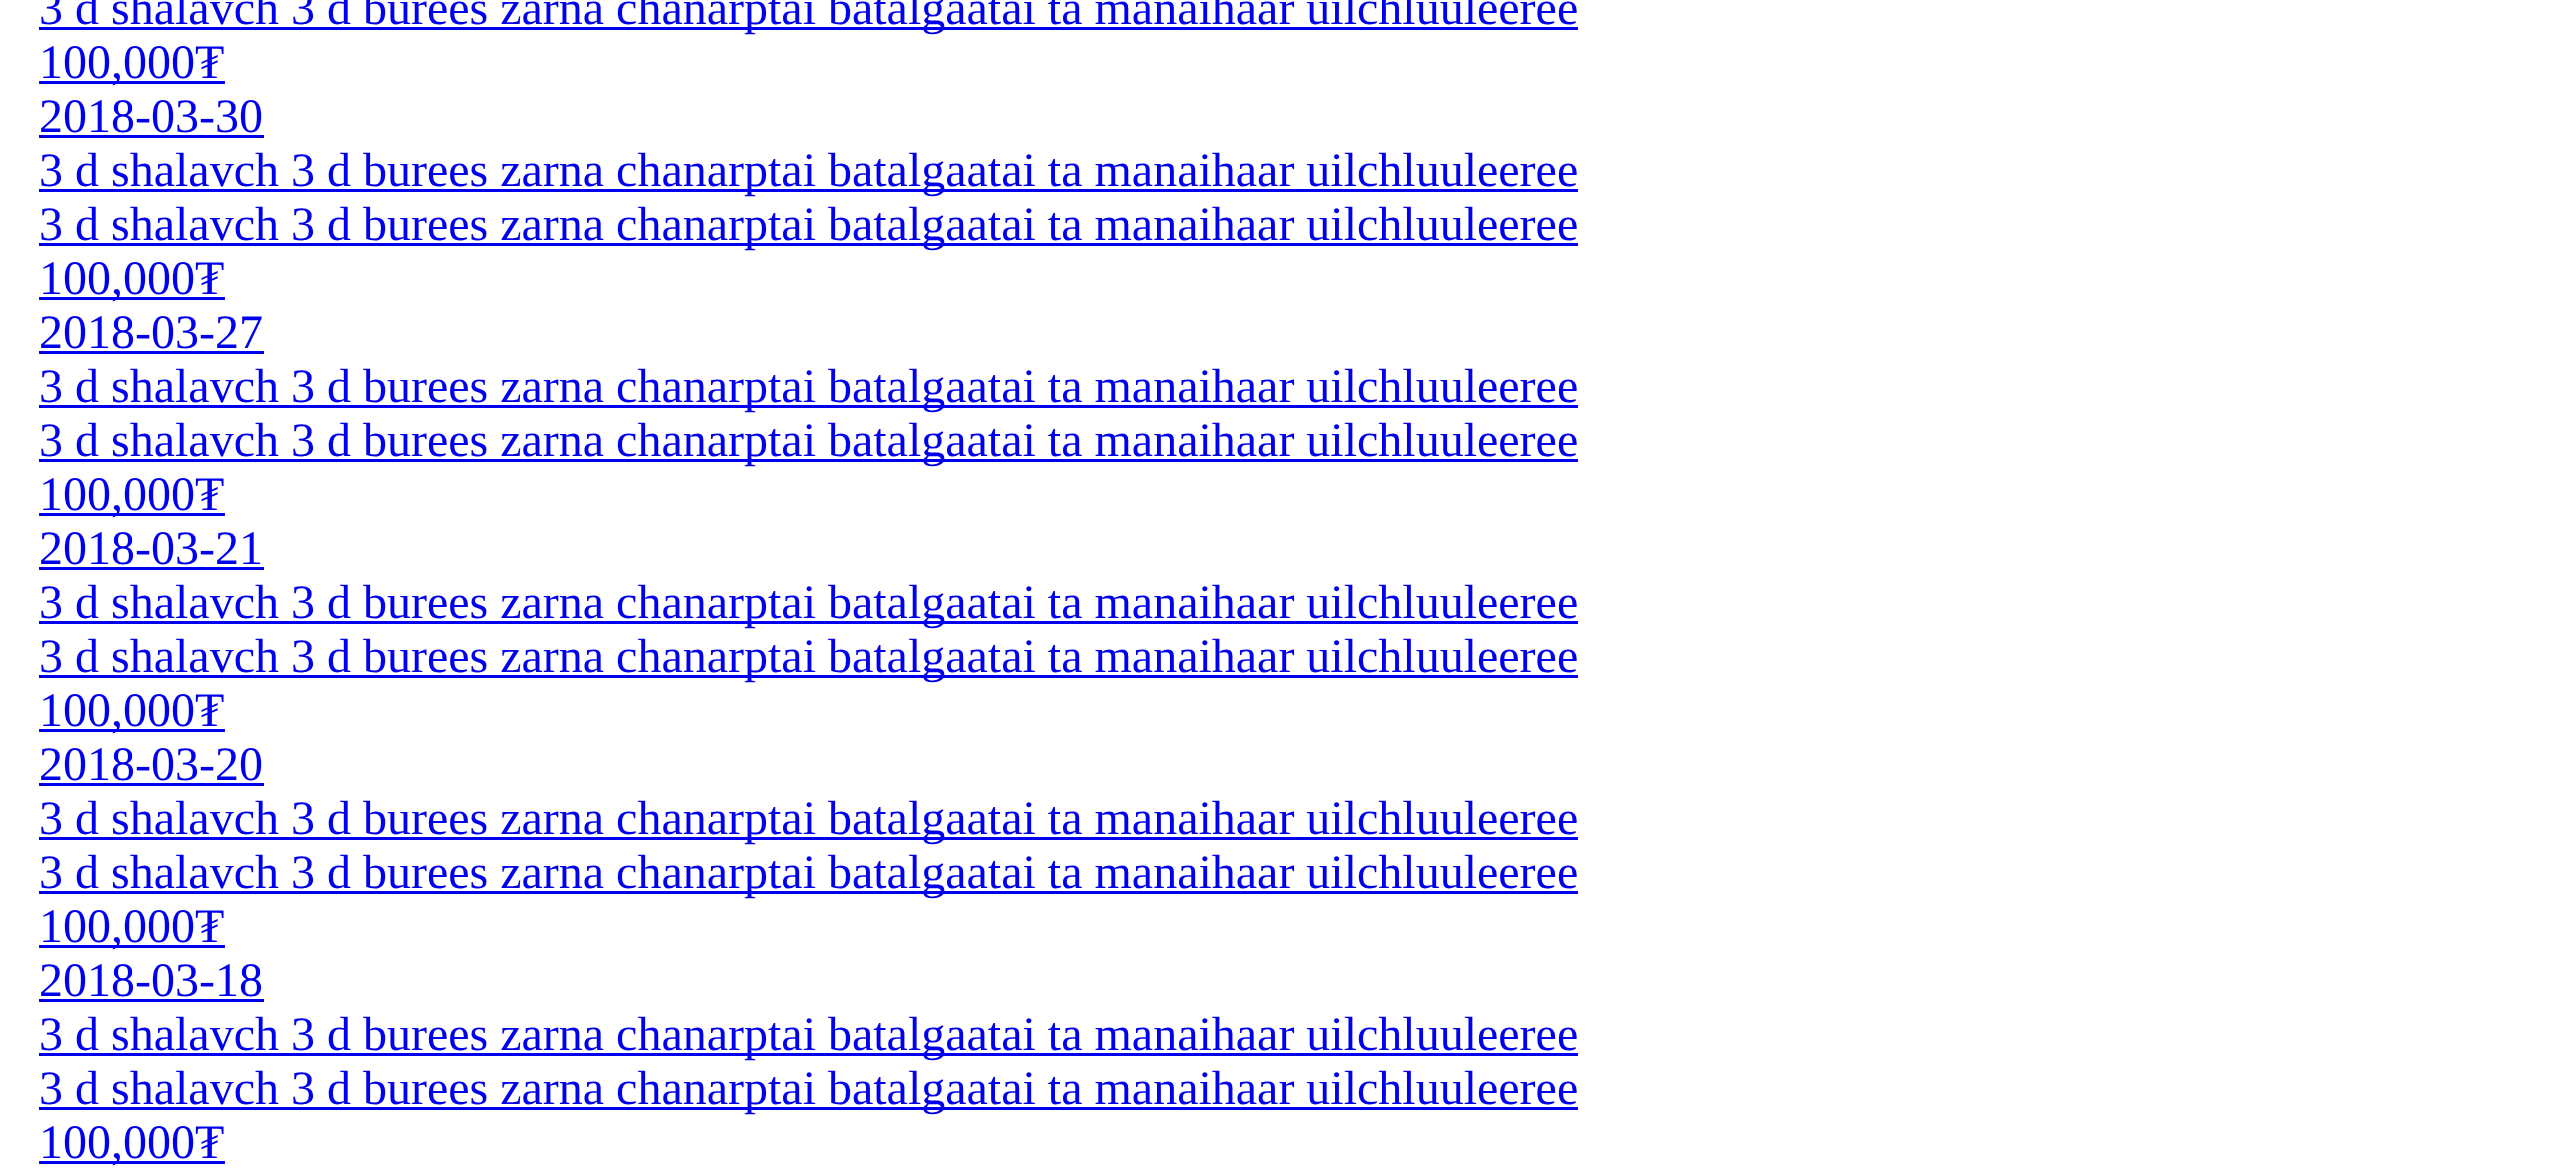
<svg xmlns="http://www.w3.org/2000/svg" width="2570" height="1169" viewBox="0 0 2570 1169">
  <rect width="100%" height="100%" fill="#fff"/>
  <path d="M39 27h1539v3H39z" fill="#00e"/>
  <path d="M39 81h186v3H39z" fill="#00e"/>
  <path d="M39 135h225v3H39z" fill="#00e"/>
  <path d="M39 189h1539v3H39z" fill="#00e"/>
  <path d="M39 243h1539v3H39z" fill="#00e"/>
  <path d="M39 297h186v3H39z" fill="#00e"/>
  <path d="M39 351h225v3H39z" fill="#00e"/>
  <path d="M39 405h1539v3H39z" fill="#00e"/>
  <path d="M39 459h1539v3H39z" fill="#00e"/>
  <path d="M39 513h186v3H39z" fill="#00e"/>
  <path d="M39 567h225v3H39z" fill="#00e"/>
  <path d="M39 621h1539v3H39z" fill="#00e"/>
  <path d="M39 675h1539v3H39z" fill="#00e"/>
  <path d="M39 729h186v3H39z" fill="#00e"/>
  <path d="M39 783h225v3H39z" fill="#00e"/>
  <path d="M39 837h1539v3H39z" fill="#00e"/>
  <path d="M39 891h1539v3H39z" fill="#00e"/>
  <path d="M39 945h186v3H39z" fill="#00e"/>
  <path d="M39 999h225v3H39z" fill="#00e"/>
  <path d="M39 1053h1539v3H39z" fill="#00e"/>
  <path d="M39 1107h1539v3H39z" fill="#00e"/>
  <path d="M39 1161h186v3H39z" fill="#00e"/>
  <g font-family="Liberation Serif" font-size="48" fill="#00e">
    <text x="39" y="24">3 d shalavch 3 d burees zarna chanarptai batalgaatai ta manaihaar uilchluuleeree</text>
    <text x="39" y="78">100,000₮</text>
    <text x="39" y="132">2018-03-30</text>
    <text x="39" y="186">3 d shalavch 3 d burees zarna chanarptai batalgaatai ta manaihaar uilchluuleeree</text>
    <text x="39" y="240">3 d shalavch 3 d burees zarna chanarptai batalgaatai ta manaihaar uilchluuleeree</text>
    <text x="39" y="294">100,000₮</text>
    <text x="39" y="348">2018-03-27</text>
    <text x="39" y="402">3 d shalavch 3 d burees zarna chanarptai batalgaatai ta manaihaar uilchluuleeree</text>
    <text x="39" y="456">3 d shalavch 3 d burees zarna chanarptai batalgaatai ta manaihaar uilchluuleeree</text>
    <text x="39" y="510">100,000₮</text>
    <text x="39" y="564">2018-03-21</text>
    <text x="39" y="618">3 d shalavch 3 d burees zarna chanarptai batalgaatai ta manaihaar uilchluuleeree</text>
    <text x="39" y="672">3 d shalavch 3 d burees zarna chanarptai batalgaatai ta manaihaar uilchluuleeree</text>
    <text x="39" y="726">100,000₮</text>
    <text x="39" y="780">2018-03-20</text>
    <text x="39" y="834">3 d shalavch 3 d burees zarna chanarptai batalgaatai ta manaihaar uilchluuleeree</text>
    <text x="39" y="888">3 d shalavch 3 d burees zarna chanarptai batalgaatai ta manaihaar uilchluuleeree</text>
    <text x="39" y="942">100,000₮</text>
    <text x="39" y="996">2018-03-18</text>
    <text x="39" y="1050">3 d shalavch 3 d burees zarna chanarptai batalgaatai ta manaihaar uilchluuleeree</text>
    <text x="39" y="1104">3 d shalavch 3 d burees zarna chanarptai batalgaatai ta manaihaar uilchluuleeree</text>
    <text x="39" y="1158">100,000₮</text>
  </g>
</svg>
